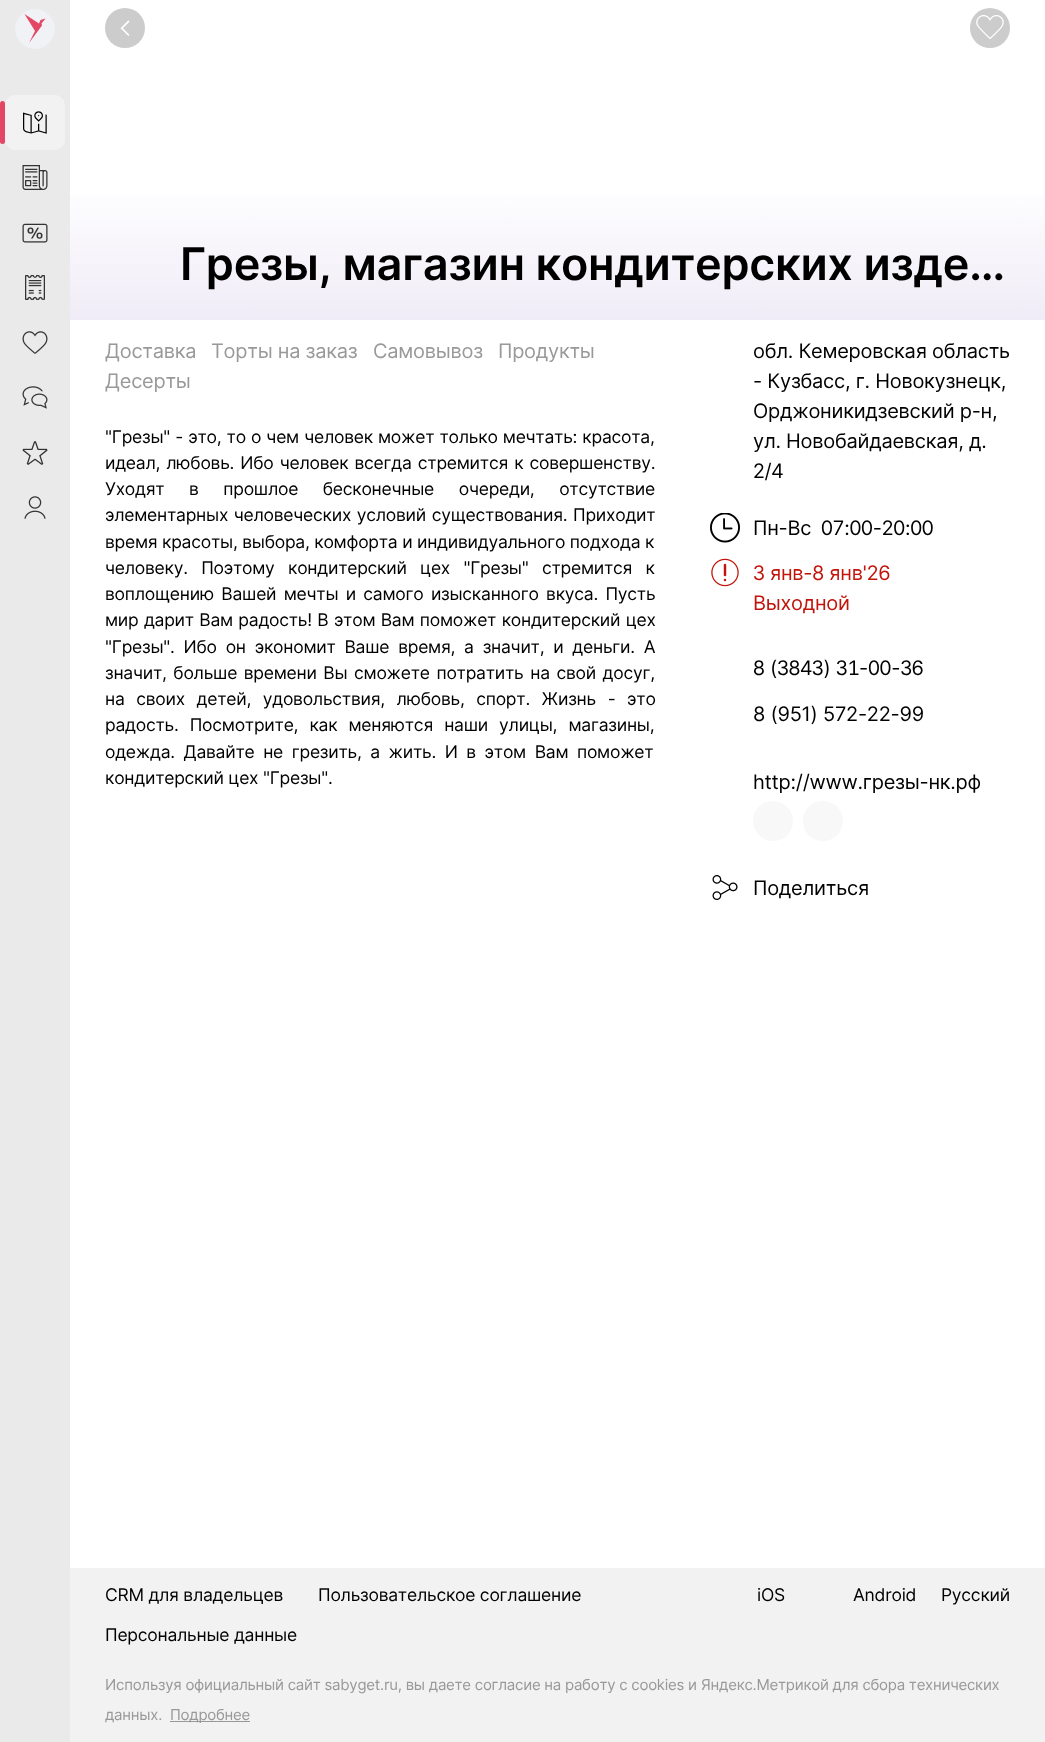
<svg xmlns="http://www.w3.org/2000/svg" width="1045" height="1742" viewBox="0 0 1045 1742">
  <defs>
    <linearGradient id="g1" gradientUnits="userSpaceOnUse" x1="558" y1="320" x2="558" y2="0"><stop offset="0" stop-color="#f0ecf7"/><stop offset="0.45" stop-color="#fff"/></linearGradient>
  </defs>
  <rect width="100%" height="100%" fill="#fff"/>
  <path d="M0 0h70v1742H0z" fill="#eaeaea"/>
  <circle cx="35" cy="29" r="19.5" fill="#f1f2f5" stroke="#f1f2f5"/>
  <path d="M41.5 23.5L42 25.5L29 43L35 31L24.5 14L39 23.5L40.5 20L45.5 18.5ZM29 43H29Z" fill="#e44766"/>
  <rect y="101" width="5" height="43" rx="2.5" fill="#e44766"/>
  <rect x="5" y="95" width="60" height="55" rx="10" fill="#f2f2f2"/>
  <image x="22" y="165" width="26" height="25" href="img/1.png"/>
  <image x="22" y="223" width="26" height="20" href="img/2.png"/>
  <image x="25" y="275" width="20" height="25" href="img/3.png"/>
  <image x="22" y="331" width="26" height="23" href="img/4.png"/>
  <image x="22" y="386" width="26" height="23" href="img/5.png"/>
  <image x="22" y="441" width="26" height="24" href="img/6.png"/>
  <image x="24" y="496" width="22" height="23" href="img/7.png"/>
  <circle cx="125" cy="28" r="20" fill="#ccc"/>
  <image x="120" y="20" width="10" height="16" href="img/8.png"/>
  <circle cx="990" cy="28" r="20" fill="#ccc"/>
  <image x="976" y="15" width="28" height="24" href="img/9.png"/>
  <path d="M70 195h975v125H70z" fill="url(#g1)"/>
  <image x="710" y="513" width="30" height="30" href="img/10.png"/>
  <image x="711" y="558" width="28" height="29" href="img/11.png"/>
  <circle cx="773" cy="821" r="20" fill="#f8f8f8"/>
  <circle cx="823" cy="821" r="20" fill="#f8f8f8"/>
  <image x="712" y="875" width="26" height="25" href="img/12.png"/>
  <path d="M70 1568h975v174H70z" fill="#f2f2f2"/>
  <path d="M170 1721h80v1H170z" fill="#999"/>
  <text x="23" y="135" font-family="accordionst" font-size="25" letter-spacing="-0.25" fill="#000">Map</text>
  <text x="180" y="280" font-family="Inter" font-size="45" font-weight="600" letter-spacing="-0.25" fill="#000">Грезы, магазин кондитерских изде…</text>
  <g font-family="Inter" font-size="20" letter-spacing="-0.25" fill="#999">
    <text x="105" y="358">Доставка</text>
    <text x="211" y="358">Торты на заказ</text>
    <text x="373" y="358">Самовывоз</text>
    <text x="498" y="358">Продукты</text>
    <text x="105" y="388">Десерты</text>
  </g>
  <g font-family="Inter" font-size="17.5" letter-spacing="-0.25" fill="#000">
    <text x="105" y="443" word-spacing="0.5">"Грезы" - это, то о чем человек может только мечтать: красота,</text>
    <text x="105" y="469" word-spacing="1.5">идеал, любовь. Ибо человек всегда стремится к совершенству.</text>
    <text x="105" y="495" word-spacing="20">Уходят в прошлое бесконечные очереди, отсутствие</text>
    <text x="105" y="521" word-spacing="1">элементарных человеческих условий существования. Приходит</text>
    <text x="105" y="548">время красоты, выбора, комфорта и индивидуального подхода к</text>
    <text x="105" y="574" word-spacing="8.75">человеку. Поэтому кондитерский цех "Грезы" стремится к</text>
    <text x="105" y="600" word-spacing="2.75">воплощению Вашей мечты и самого изысканного вкуса. Пусть</text>
    <text x="105" y="626" word-spacing="0.75">мир дарит Вам радость! В этом Вам поможет кондитерский цех</text>
    <text x="105" y="653" word-spacing="4.25">"Грезы". Ибо он экономит Ваше время, а значит, и деньги. А</text>
    <text x="105" y="679" word-spacing="2">значит, больше времени Вы сможете потратить на свой досуг,</text>
    <text x="105" y="705" word-spacing="7">на своих детей, удовольствия, любовь, спорт. Жизнь - это</text>
    <text x="105" y="731" word-spacing="6.5">радость. Посмотрите, как меняются наши улицы, магазины,</text>
    <text x="105" y="758" word-spacing="4">одежда. Давайте не грезить, а жить. И в этом Вам поможет</text>
    <text x="105" y="784">кондитерский цех "Грезы".</text>
  </g>
  <g font-family="Inter" font-size="20" letter-spacing="-0.25" fill="#000">
    <text x="753" y="358">обл. Кемеровская область</text>
    <text x="753" y="388">- Кузбасс, г. Новокузнецк,</text>
    <text x="753" y="418">Орджоникидзевский р-н,</text>
    <text x="753" y="448">ул. Новобайдаевская, д.</text>
  </g>
  <text x="753" y="478" font-family="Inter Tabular" font-size="20" letter-spacing="-0.25" fill="#000">2/4</text>
  <text x="753" y="535" font-family="Inter" font-size="20" letter-spacing="-0.25" fill="#000">Пн-Вс</text>
  <text x="821" y="535" font-family="Inter Tabular" font-size="20" letter-spacing="-0.25" fill="#000">07:00-20:00</text>
  <text x="753" y="580" font-family="Inter Tabular" font-size="20" letter-spacing="-0.25" fill="#c2140a">3 янв-8 янв'26</text>
  <text x="753" y="610" font-family="Inter" font-size="20" letter-spacing="-0.25" fill="#c2140a">Выходной</text>
  <text x="753" y="675" font-family="Inter Tabular" font-size="20" letter-spacing="-0.25" fill="#000">8 (3843) 31-00-36</text>
  <g font-family="Inter" font-size="20" letter-spacing="-0.25" fill="#000">
    <text x="753" y="721">8 (951) 572-22-99</text>
    <text x="753" y="789">http://www.грезы-нк.рф</text>
    <text x="753" y="895">Поделиться</text>
  </g>
  <g font-family="Inter" font-size="17.5" letter-spacing="-0.25" fill="#000">
    <text x="105" y="1601">CRM для владельцев</text>
    <text x="318" y="1601">Пользовательское соглашение</text>
    <text x="105" y="1641">Персональные данные</text>
    <text x="757" y="1601">iOS</text>
    <text x="853" y="1601">Android</text>
    <text x="941" y="1601">Русский</text>
  </g>
  <g font-family="Inter" font-size="15" letter-spacing="-0.25" fill="#999">
    <text x="105" y="1690">Используя официальный сайт sabyget.ru, вы даете согласие на работу с cookies и Яндекс.Метрикой для сбора технических</text>
    <text x="105" y="1720">данных.</text>
    <text x="170" y="1720">Подробнее</text>
  </g>
</svg>
